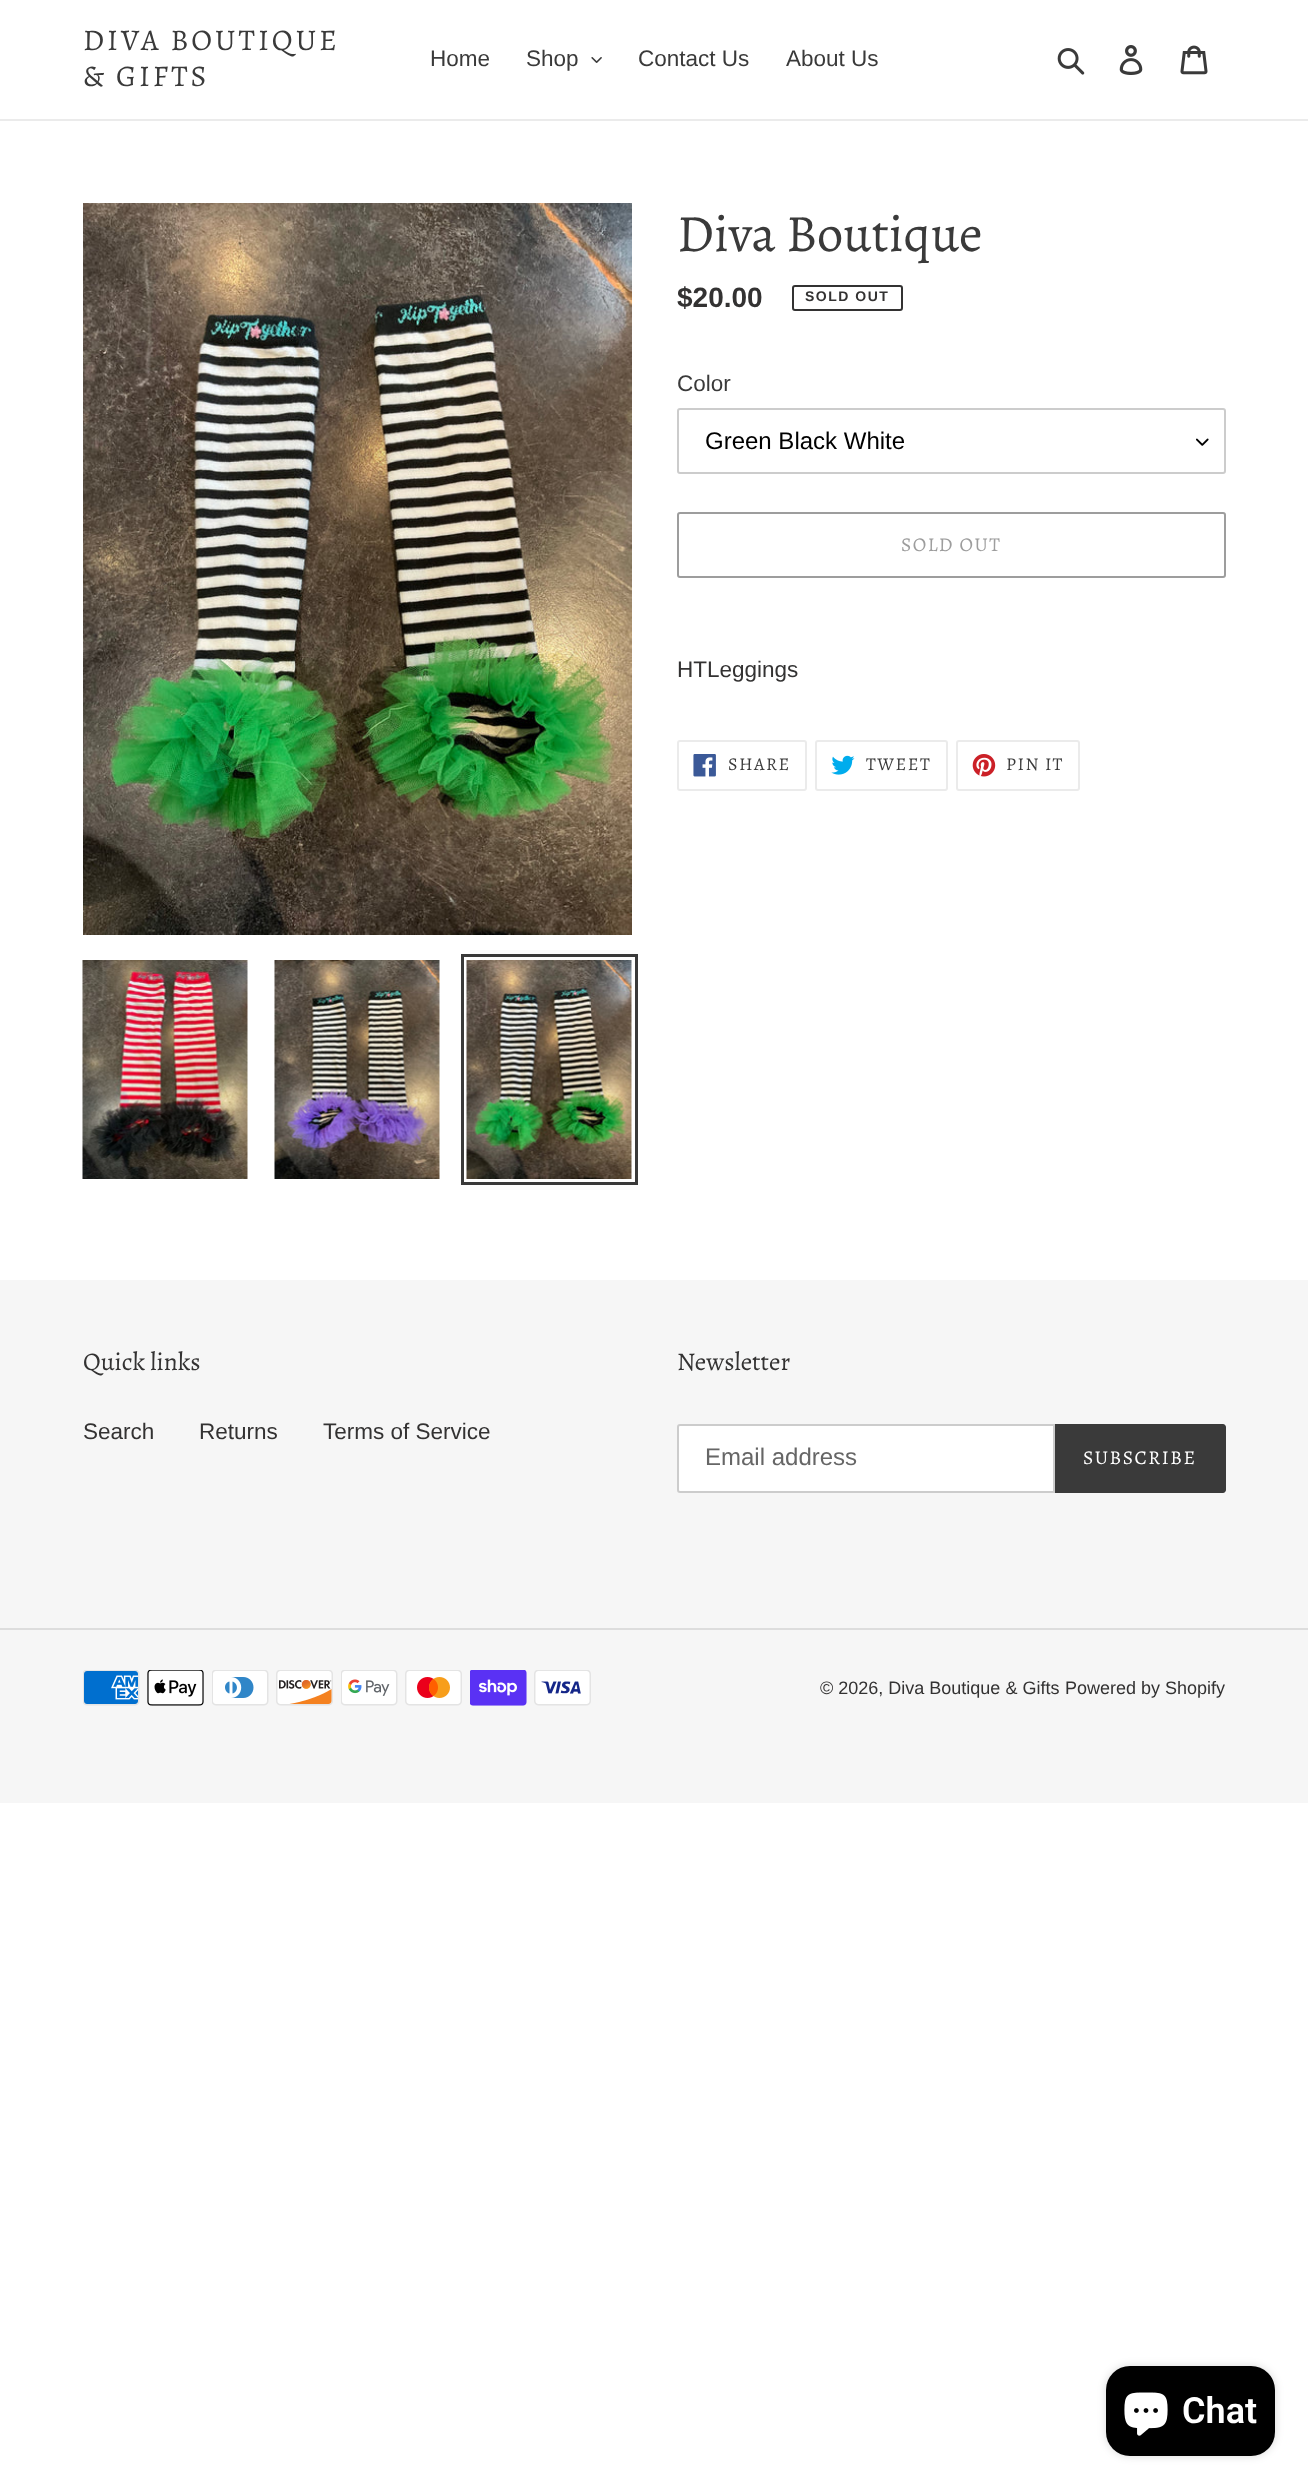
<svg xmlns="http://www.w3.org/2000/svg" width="1308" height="2487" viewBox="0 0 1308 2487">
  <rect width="100%" height="100%" fill="#fff"/>
  <path d="M0 119h1308v2H0z" fill="#ebebeb"/>
  <image x="591" y="57" width="11" height="6" href="img/1.png"/>
  <image x="1057" y="48" width="28" height="27" href="img/2.png"/>
  <image x="1119" y="45" width="24" height="30" href="img/3.png"/>
  <image x="1180" y="45" width="28" height="30" href="img/4.png"/>
  <image x="83" y="203" width="549" height="732" href="img/5.png"/>
  <image x="82" y="960" width="166" height="219" href="img/6.png"/>
  <image x="274" y="960" width="166" height="219" href="img/7.png"/>
  <path d="M462.5 955.5h174v228H462.5z" fill="none" stroke="#3a3a3a" stroke-width="3"/>
  <image x="466" y="960" width="166" height="219" href="img/8.png"/>
  <rect x="793" y="286" width="109" height="24" rx="2" fill="none" stroke="#333232" stroke-width="2"/>
  <image x="1196" y="438" width="13" height="8" href="img/9.png"/>
  <rect x="678" y="409" width="547" height="64" rx="2" fill="none" stroke="#ccc" stroke-width="2"/>
  <rect x="678" y="513" width="547" height="64" rx="2" fill="none" stroke="#9d9d9d" stroke-width="2"/>
  <rect x="678" y="741" width="128" height="49" rx="2" fill="none" stroke="#ebebeb" stroke-width="2"/>
  <image x="693" y="754" width="23" height="23" href="img/10.png"/>
  <rect x="816" y="741" width="131" height="49" rx="2" fill="none" stroke="#ebebeb" stroke-width="2"/>
  <image x="831" y="755" width="24" height="20" href="img/11.png"/>
  <rect x="957" y="741" width="122" height="49" rx="2" fill="none" stroke="#ebebeb" stroke-width="2"/>
  <image x="972" y="754" width="24" height="23" href="img/12.png"/>
  <path d="M0 1280h1308v523H0z" fill="#f6f6f6"/>
  <path d="M680 1425H1054V1492H680C679 1492 678 1491 678 1490V1427C678 1426 679 1425 680 1425Z" fill="#fff" stroke="#ccc" stroke-width="2"/>
  <path d="M1055 1424H1223C1224.5 1424 1226 1425.5 1226 1427V1490C1226 1491.5 1224.5 1493 1223 1493H1055Z" fill="#3a3a3a"/>
  <path d="M0 1628h1308v2H0z" fill="#ddd"/>
  <image x="83" y="1670" width="57" height="36" href="img/13.png"/>
  <image x="147" y="1670" width="57" height="36" href="img/14.png"/>
  <image x="212" y="1670" width="57" height="36" href="img/15.png"/>
  <image x="276" y="1670" width="57" height="36" href="img/16.png"/>
  <image x="341" y="1670" width="57" height="36" href="img/17.png"/>
  <image x="405" y="1670" width="57" height="36" href="img/18.png"/>
  <image x="470" y="1670" width="57" height="36" href="img/19.png"/>
  <image x="534" y="1670" width="57" height="36" href="img/20.png"/>
  <rect x="1106" y="2366" width="169" height="90" rx="24" fill="#00000026" filter="blur(4px)"/>
  <rect x="1106" y="2366" width="169" height="90" rx="24" fill="#000"/>
  <image x="1124" y="2392" width="44" height="44" href="img/21.png"/>
  <g font-family="Alegreya" font-size="30" letter-spacing="3" fill="#3a3a3a">
    <text x="83" y="50">DIVA BOUTIQUE</text>
    <text x="83" y="86">&amp; GIFTS</text>
  </g>
  <g font-family="Liberation Sans" font-size="22.5" fill="#3a3a3a">
    <text x="430" y="66">Home</text>
    <text x="526" y="66">Shop</text>
    <text x="638" y="66">Contact Us</text>
    <text x="786" y="66">About Us</text>
  </g>
  <text x="677" y="251" font-family="Alegreya" font-size="52.5" fill="#3a3a3a">Diva Boutique</text>
  <text x="677" y="307" font-family="Liberation Sans" font-size="28" font-weight="bold" fill="#333232">$20.00</text>
  <text x="805" y="301" font-family="Liberation Sans" font-size="14" font-weight="bold" letter-spacing="1.5" fill="#333232">SOLD OUT</text>
  <text x="677" y="391" font-family="Liberation Sans" font-size="22.5" fill="#3a3a3a">Color</text>
  <text x="705" y="449" font-family="Liberation Sans" font-size="24" fill="#000">Green Black White</text>
  <text x="901" y="551" font-family="Alegreya" font-size="19.5" letter-spacing="1.5" fill="#9d9d9d">SOLD OUT</text>
  <text x="677" y="677" font-family="Liberation Sans" font-size="22.5" fill="#333232">HTLeggings</text>
  <g font-family="Alegreya" font-size="18" letter-spacing="1.5" fill="#3a3a3a">
    <text x="728" y="770">SHARE</text>
    <text x="866" y="770">TWEET</text>
    <text x="1006" y="770">PIN IT</text>
  </g>
  <text x="83" y="1370" font-family="Alegreya" font-size="25.5" fill="#333232">Quick links</text>
  <g font-family="Liberation Sans" font-size="22.5" fill="#333232">
    <text x="83" y="1439">Search</text>
    <text x="199" y="1439">Returns</text>
    <text x="323" y="1439">Terms of Service</text>
  </g>
  <text x="677" y="1370" font-family="Alegreya" font-size="25.5" fill="#333232">Newsletter</text>
  <text x="705" y="1465" font-family="Liberation Sans" font-size="24" fill="#666">Email address</text>
  <text x="1083" y="1464" font-family="Alegreya" font-size="19.5" letter-spacing="1.5" fill="#fff">SUBSCRIBE</text>
  <g font-family="Liberation Sans" font-size="18" fill="#333232">
    <text x="820" y="1694">© 2026, Diva Boutique &amp; Gifts</text>
    <text x="1065" y="1694">Powered by Shopify</text>
  </g>
  <text x="1182" y="2423" font-family="Roboto" font-size="36" font-weight="600" fill="#fff">Chat</text>
</svg>
